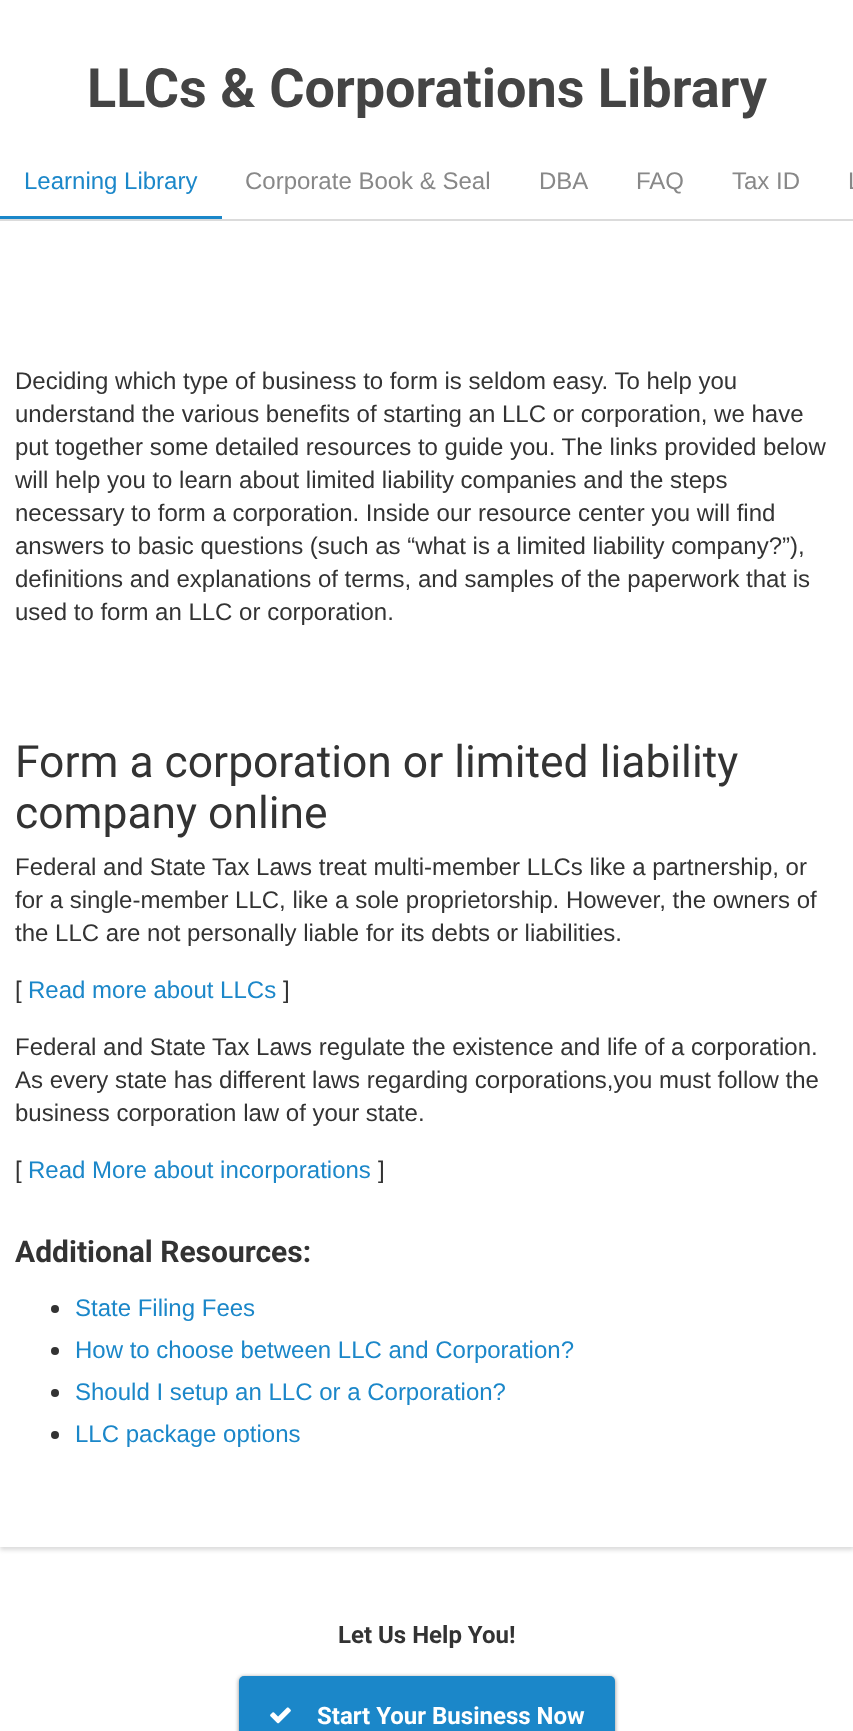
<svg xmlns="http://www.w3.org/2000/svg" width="853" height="1731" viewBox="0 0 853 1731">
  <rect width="100%" height="100%" fill="#fff"/>
  <path d="M0 -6h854v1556H0z" fill="#dbdbdb" filter="blur(2px)"/>
  <path d="M0 0h853v1547H0z" fill="#fff"/>
  <path d="M0 219h853v2H0z" fill="#dbdbdb"/>
  <path d="M0 216h222v3H0z" fill="#1b87c9"/>
  <circle cx="55" cy="1309" r="4" fill="#333"/>
  <circle cx="55" cy="1351" r="4" fill="#333"/>
  <circle cx="55" cy="1393" r="4" fill="#333"/>
  <circle cx="55" cy="1435" r="4" fill="#333"/>
  <rect x="239" y="1677" width="376" height="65" rx="5" fill="#888" filter="blur(2px)"/>
  <rect x="239" y="1676" width="376" height="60" rx="5" fill="#1b87c9"/>
  <image x="270" y="1707" width="21" height="17" href="img/1.png"/>
  <text x="87" y="107" font-family="Roboto" font-size="54" font-weight="bold" fill="#444">LLCs &amp; Corporations Library</text>
  <text x="24" y="189" font-family="Liberation Sans" font-size="24" fill="#1b87c9">Learning Library</text>
  <g font-family="Liberation Sans" font-size="24" fill="#888">
    <text x="245" y="189">Corporate Book &amp; Seal</text>
    <text x="539" y="189">DBA</text>
    <text x="636" y="189">FAQ</text>
    <text x="732" y="189">Tax ID</text>
    <text x="848" y="189">L</text>
  </g>
  <g font-family="Liberation Sans" font-size="24" fill="#333">
    <text x="15" y="389">Deciding which type of business to form is seldom easy. To help you</text>
    <text x="15" y="422">understand the various benefits of starting an LLC or corporation, we have</text>
    <text x="15" y="455">put together some detailed resources to guide you. The links provided below</text>
    <text x="15" y="488">will help you to learn about limited liability companies and the steps</text>
    <text x="15" y="521">necessary to form a corporation. Inside our resource center you will find</text>
    <text x="15" y="554">answers to basic questions (such as “what is a limited liability company?”),</text>
    <text x="15" y="587">definitions and explanations of terms, and samples of the paperwork that is</text>
    <text x="15" y="620">used to form an LLC or corporation.</text>
  </g>
  <g font-family="Roboto" font-size="44.4" fill="#333">
    <text x="15" y="777">Form a corporation or limited liability</text>
    <text x="15" y="828">company online</text>
  </g>
  <g font-family="Liberation Sans" font-size="24" fill="#333">
    <text x="15" y="875">Federal and State Tax Laws treat multi-member LLCs like a partnership, or</text>
    <text x="15" y="908">for a single-member LLC, like a sole proprietorship. However, the owners of</text>
    <text x="15" y="941">the LLC are not personally liable for its debts or liabilities.</text>
    <text x="15" y="998">[</text>
  </g>
  <text x="28" y="998" font-family="Liberation Sans" font-size="24" fill="#1b87c9">Read more about LLCs</text>
  <g font-family="Liberation Sans" font-size="24" fill="#333">
    <text x="283" y="998">]</text>
    <text x="15" y="1055">Federal and State Tax Laws regulate the existence and life of a corporation.</text>
    <text x="15" y="1088">As every state has different laws regarding corporations,you must follow the</text>
    <text x="15" y="1121">business corporation law of your state.</text>
    <text x="15" y="1178">[</text>
  </g>
  <text x="28" y="1178" font-family="Liberation Sans" font-size="24" fill="#1b87c9">Read More about incorporations</text>
  <text x="378" y="1178" font-family="Liberation Sans" font-size="24" fill="#333">]</text>
  <text x="15" y="1262" font-family="Roboto" font-size="30" font-weight="bold" fill="#333">Additional Resources:</text>
  <g font-family="Liberation Sans" font-size="24" fill="#1b87c9">
    <text x="75" y="1316">State Filing Fees</text>
    <text x="75" y="1358">How to choose between LLC and Corporation?</text>
    <text x="75" y="1400">Should I setup an LLC or a Corporation?</text>
    <text x="75" y="1442">LLC package options</text>
  </g>
  <text x="338" y="1643" font-family="Roboto" font-size="24" font-weight="bold" fill="#333">Let Us Help You!</text>
  <text x="317" y="1724" font-family="Roboto" font-size="24" font-weight="bold" fill="#fff">Start Your Business Now</text>
</svg>
